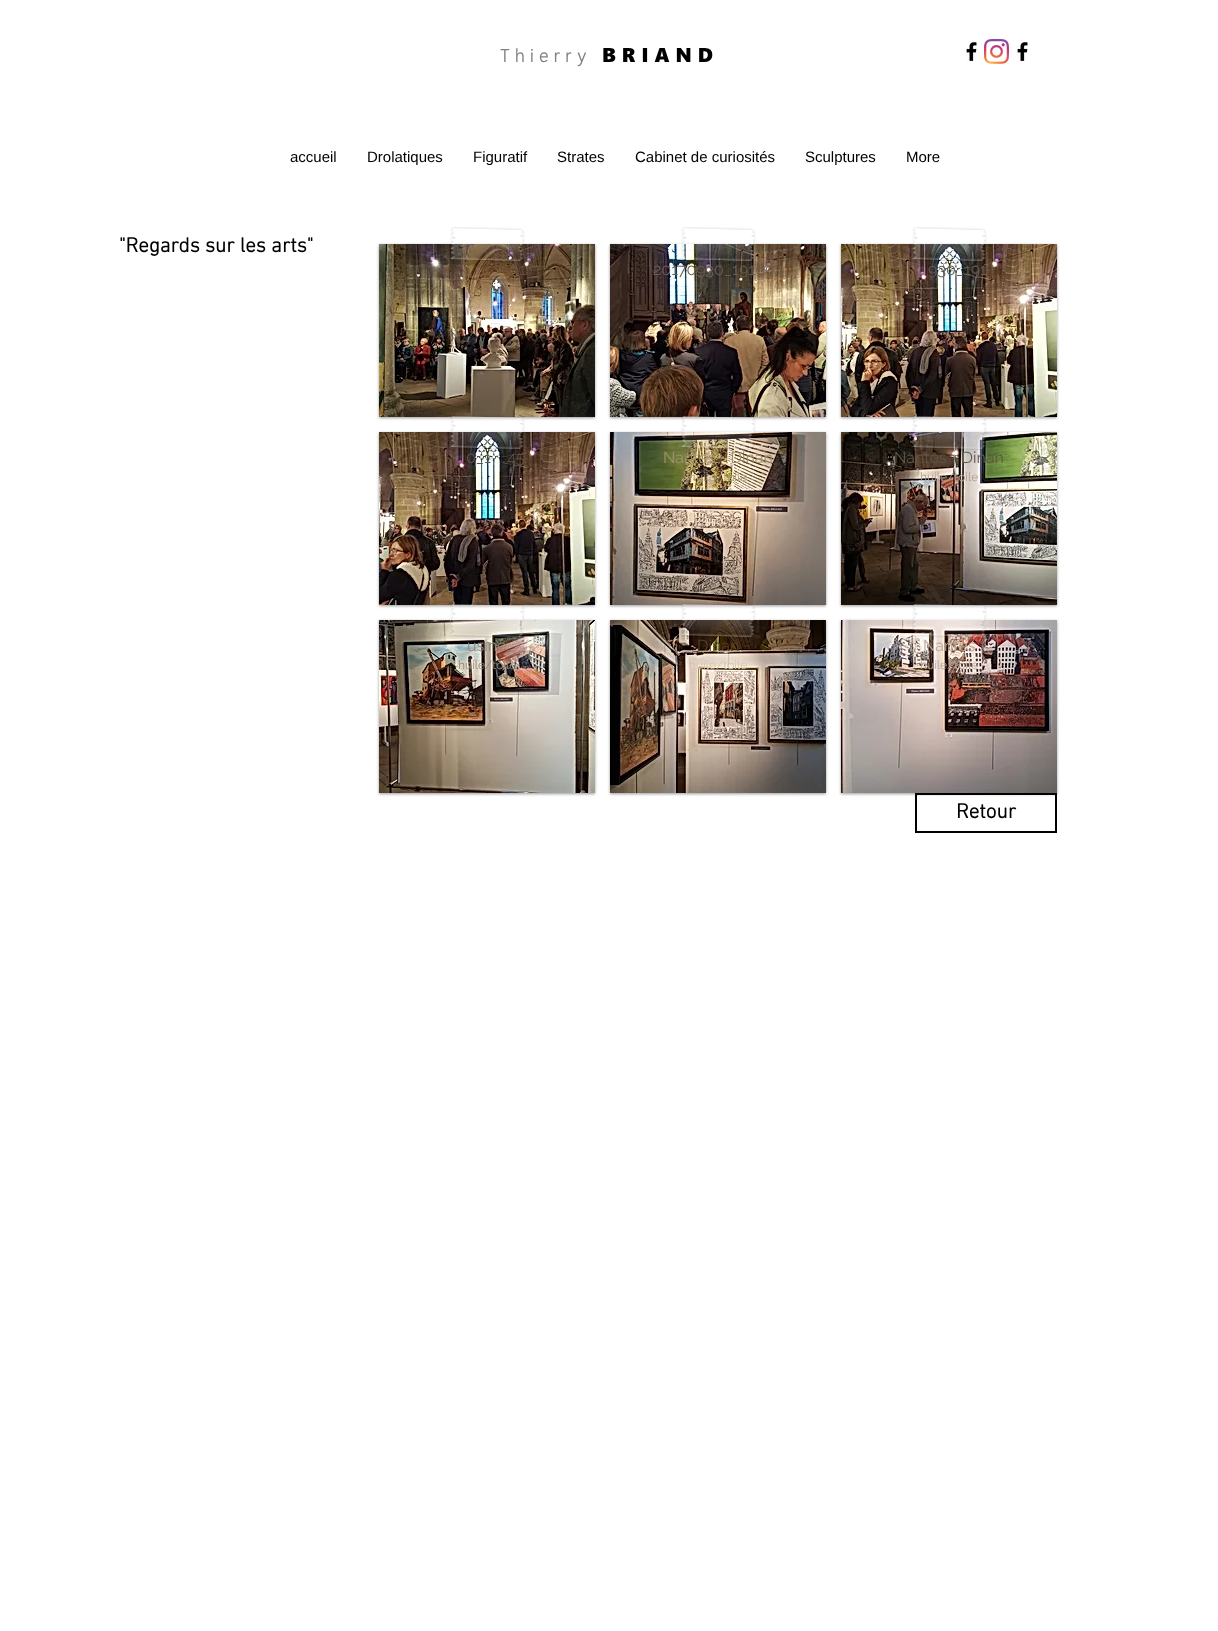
<svg xmlns="http://www.w3.org/2000/svg" width="1218" height="1631" viewBox="0 0 1218 1631">
  <rect width="100%" height="100%" fill="#fff"/>
  <image x="966" y="42" width="11" height="20" href="img/1.png"/>
  <image x="984" y="39" width="25" height="25" href="img/2.png"/>
  <image x="1017" y="42" width="11" height="20" href="img/1.png"/>
  <path d="M379 245h216v173H379z" fill="#00000066" filter="blur(1.5px)"/>
  <image x="379" y="244" width="216" height="173" href="img/4.png"/>
  <image x="450" y="227" width="75" height="35" href="img/3.png"/>
  <path d="M610 245h216v173H610z" fill="#00000066" filter="blur(1.5px)"/>
  <image x="610" y="244" width="216" height="173" href="img/6.png"/>
  <image x="681" y="227" width="75" height="35" href="img/5.png"/>
  <path d="M841 245h216v173H841z" fill="#00000066" filter="blur(1.5px)"/>
  <image x="841" y="244" width="216" height="173" href="img/8.png"/>
  <image x="912" y="227" width="75" height="35" href="img/7.png"/>
  <path d="M379 433h216v173H379z" fill="#00000066" filter="blur(1.5px)"/>
  <image x="379" y="432" width="216" height="173" href="img/10.png"/>
  <image x="450" y="415" width="75" height="35" href="img/9.png"/>
  <path d="M610 433h216v173H610z" fill="#00000066" filter="blur(1.5px)"/>
  <image x="610" y="432" width="216" height="173" href="img/12.png"/>
  <image x="681" y="415" width="75" height="35" href="img/11.png"/>
  <path d="M841 433h216v173H841z" fill="#00000066" filter="blur(1.5px)"/>
  <image x="841" y="432" width="216" height="173" href="img/14.png"/>
  <image x="912" y="415" width="75" height="35" href="img/13.png"/>
  <path d="M379 621h216v173H379z" fill="#00000066" filter="blur(1.5px)"/>
  <image x="379" y="620" width="216" height="173" href="img/16.png"/>
  <image x="450" y="603" width="75" height="35" href="img/15.png"/>
  <path d="M610 621h216v173H610z" fill="#00000066" filter="blur(1.5px)"/>
  <image x="610" y="620" width="216" height="173" href="img/18.png"/>
  <image x="681" y="603" width="75" height="34" href="img/17.png"/>
  <path d="M841 621h216v173H841z" fill="#00000066" filter="blur(1.5px)"/>
  <image x="841" y="620" width="216" height="173" href="img/20.png"/>
  <image x="912" y="604" width="75" height="34" href="img/19.png"/>
  <path d="M916 794h140v38H916z" fill="none" stroke="#000" stroke-width="2"/>
  <text x="500" y="62" font-family="Segoe UI" font-size="18" font-weight="bold" letter-spacing="5.5" fill="#818181">Thierry</text>
  <text x="602" y="62" font-family="Segoe UI" font-size="20" font-weight="900" letter-spacing="6" fill="#000">BRIAND</text>
  <g font-family="Liberation Sans" font-size="15" fill="#000">
    <text x="290" y="162">accueil</text>
    <text x="367" y="162">Drolatiques</text>
    <text x="473" y="162">Figuratif</text>
    <text x="557" y="162">Strates</text>
    <text x="635" y="162">Cabinet de curiosités</text>
    <text x="805" y="162">Sculptures</text>
    <text x="906" y="162">More</text>
  </g>
  <text x="119" y="252" font-family="'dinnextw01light'" font-size="21" font-weight="bold" fill="#000">"Regards sur les arts"</text>
  <text x="519" y="275" font-family="Raleway" font-size="16" fill="#685139">1</text>
  <g font-family="Raleway" font-size="16" fill="#695e54">
    <text x="653" y="275">20170930_191604</text>
    <text x="928" y="275">930_191</text>
  </g>
  <g font-family="Raleway" font-size="16" fill="#645346">
    <text x="466" y="463">0_1</text>
    <text x="507" y="463">45</text>
  </g>
  <text x="663" y="463" font-family="Raleway" font-size="16" fill="#9e926b">Nantes - Dinan</text>
  <text x="689" y="481" font-family="Raleway" font-size="12" fill="#b09e79">huile/toile</text>
  <text x="894" y="463" font-family="Raleway" font-size="16" fill="#5d5946">Nantes - Dinan</text>
  <text x="920" y="481" font-family="Raleway" font-size="12" fill="#ab9c92">huile/toile</text>
  <text x="467" y="651" font-family="Raleway" font-size="16" fill="#93877d">usine</text>
  <text x="458" y="669" font-family="Raleway" font-size="12" fill="#93877d">huile/toile</text>
  <text x="697" y="651" font-family="Raleway" font-size="16" fill="#524029">Dinan</text>
  <text x="689" y="669" font-family="Raleway" font-size="12" fill="#d4c3b1">huile/toile</text>
  <text x="923" y="651" font-family="Raleway" font-size="16" fill="#bba79a">Nantes</text>
  <text x="920" y="669" font-family="Raleway" font-size="12" fill="#b5a499">huile/toile</text>
  <text x="956" y="818" font-family="'dinnextw01light'" font-size="21" font-weight="bold" fill="#000">Retour</text>
</svg>
